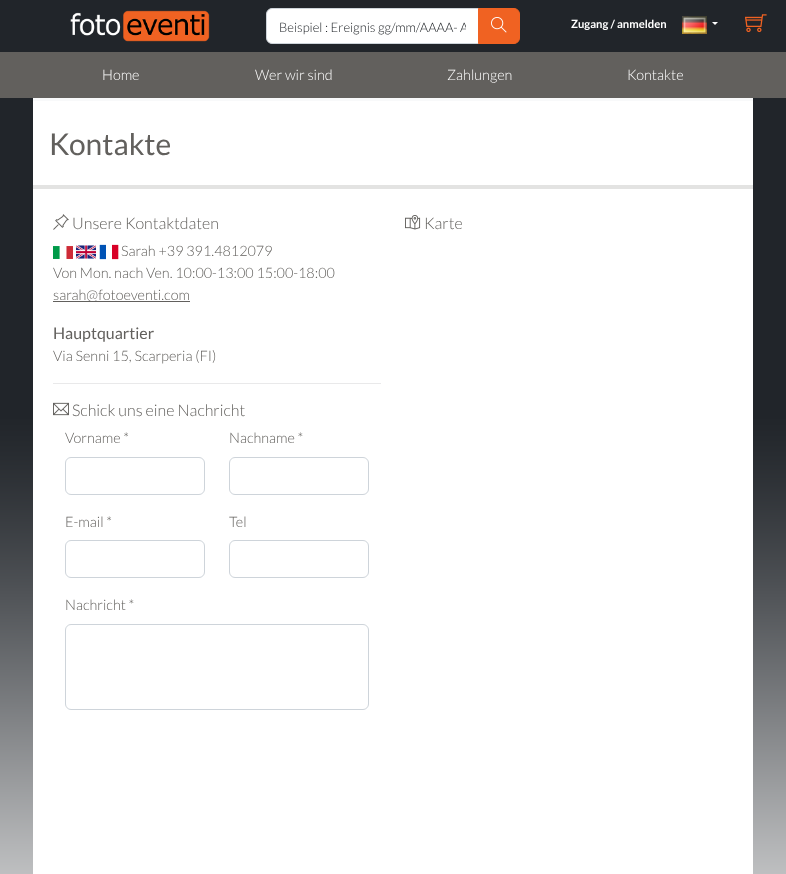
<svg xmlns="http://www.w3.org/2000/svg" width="786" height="874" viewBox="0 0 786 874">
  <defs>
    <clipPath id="clip1"><path d="M279 19h187v16H279z"/></clipPath>
  </defs>
  <rect width="100%" height="100%" fill="#fff"/>
  <image x="0" y="0" width="786" height="874" href="img/1.png"/>
  <image x="70" y="10" width="140" height="32" href="img/2.png"/>
  <path d="M272 8.5H478.5V43.5H272C269 43.5 266.5 41 266.5 38V14C266.5 11 269 8.5 272 8.5Z" fill="#fff" stroke="#ced4da"/>
  <path d="M478.5 8.5H514C517 8.5 519.5 11 519.5 14V38C519.5 41 517 43.5 514 43.5H478.5Z" fill="#f06222" stroke="#f06222"/>
  <image x="491" y="17" width="16" height="16" href="img/3.png"/>
  <image x="682" y="16" width="25" height="18" href="img/4.png"/>
  <path d="M712 22H718L715 25Z" fill="#fff"/>
  <image x="745" y="14" width="22" height="19" href="img/5.png"/>
  <path d="M0 52h786v46H0z" fill="#62605d"/>
  <path d="M33 101h720v84H33z" fill="#fff"/>
  <path d="M33 98h720v3H33z" fill="#f8f9fa"/>
  <path d="M33 185h720v4H33z" fill="#e3e3e2"/>
  <path d="M33 189h720v685H33z" fill="#fff"/>
  <image x="53" y="214" width="16" height="16" href="img/6.png"/>
  <image x="53" y="246" width="20" height="13" href="img/7.png"/>
  <image x="76" y="245" width="20" height="14" href="img/8.png"/>
  <image x="99" y="244" width="20" height="16" href="img/9.png"/>
  <path d="M53 301h137v1H53z" fill="#62605d"/>
  <path d="M53 383h328v1H53z" fill="#e9e9ea"/>
  <image x="53" y="402" width="16" height="14" href="img/10.png"/>
  <rect x="65.5" y="457.5" width="139" height="37" rx="5.5" fill="none" stroke="#ced4da"/>
  <rect x="229.5" y="457.5" width="139" height="37" rx="5.5" fill="none" stroke="#ced4da"/>
  <rect x="65.5" y="540.5" width="139" height="37" rx="5.5" fill="none" stroke="#ced4da"/>
  <rect x="229.5" y="540.5" width="139" height="37" rx="5.5" fill="none" stroke="#ced4da"/>
  <rect x="65.5" y="624.5" width="303" height="85" rx="5.5" fill="none" stroke="#ced4da"/>
  <image x="405" y="215" width="16" height="15" href="img/11.png"/>
  <g clip-path="url(#clip1)">
    <text x="279" y="32" font-family="Lato" font-size="13" font-weight="300" fill="#212529">Beispiel : Ereignis gg/mm/AAAA- A</text>
  </g>
  <text x="571" y="28" font-family="Lato" font-size="11.25" font-weight="bold" fill="#fff">Zugang / anmelden</text>
  <g font-family="Lato" font-size="14.4" font-weight="300" fill="#fff">
    <text x="102" y="80">Home</text>
    <text x="255" y="80">Wer wir sind</text>
    <text x="447" y="80">Zahlungen</text>
    <text x="627" y="80">Kontakte</text>
  </g>
  <text x="49" y="155" font-family="Lato" font-size="30" fill="#62605d">Kontakte</text>
  <text x="72" y="229" font-family="Lato" font-size="16" font-weight="300" fill="#62605d">Unsere Kontaktdaten</text>
  <g font-family="Lato" font-size="14.4" font-weight="300" fill="#62605d">
    <text x="121" y="256">Sarah +39 391.4812079</text>
    <text x="53" y="278">Von Mon. nach Ven. 10:00-13:00 15:00-18:00</text>
    <text x="53" y="300">sarah@fotoeventi.com</text>
  </g>
  <text x="53" y="339" font-family="Lato" font-size="16" fill="#62605d">Hauptquartier</text>
  <text x="53" y="361" font-family="Lato" font-size="14.4" font-weight="300" fill="#62605d">Via Senni 15, Scarperia (FI)</text>
  <text x="72" y="416" font-family="Lato" font-size="16" font-weight="300" fill="#62605d">Schick uns eine Nachricht</text>
  <g font-family="Lato" font-size="14.4" font-weight="300" fill="#62605d">
    <text x="65" y="443">Vorname *</text>
    <text x="229" y="443">Nachname *</text>
    <text x="65" y="527">E-mail *</text>
    <text x="229" y="527">Tel</text>
    <text x="65" y="610">Nachricht *</text>
  </g>
  <text x="424" y="229" font-family="Lato" font-size="16" font-weight="300" fill="#62605d">Karte</text>
</svg>
